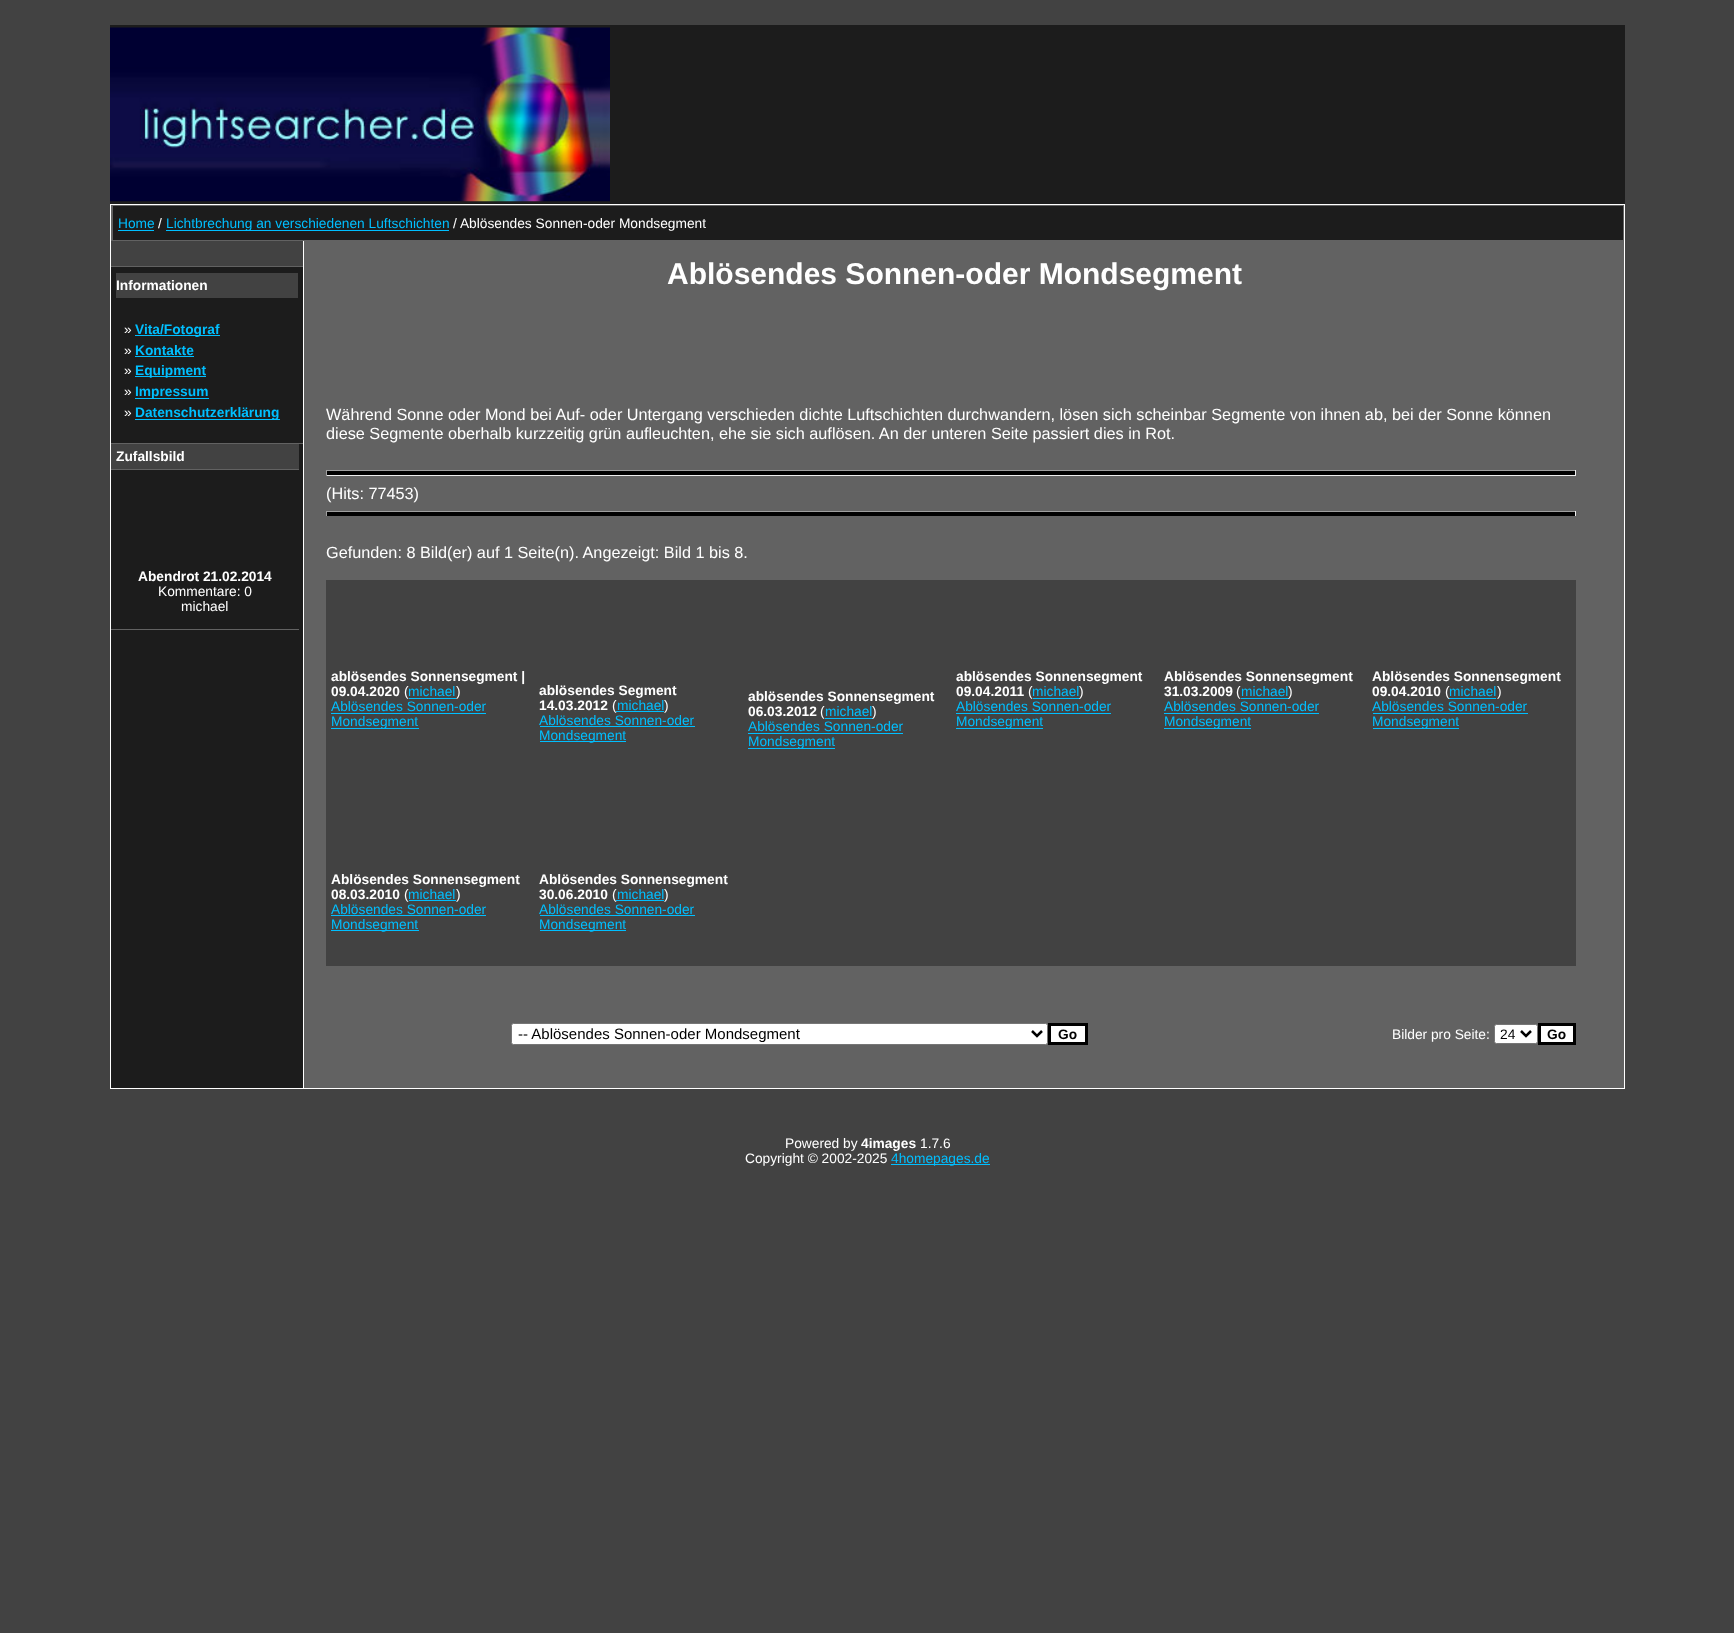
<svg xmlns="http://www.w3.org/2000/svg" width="1734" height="1633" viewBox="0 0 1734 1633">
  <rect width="100%" height="100%" fill="#424242"/>
  <path d="M110 25h1515v179H110z" fill="#1c1c1c"/>
  <image x="110" y="27" width="500" height="175" href="img/1.png"/>
  <path d="M110 204h1515v885H110z" fill="#fff"/>
  <path d="M111 205h1513v883H111z" fill="#626262"/>
  <path d="M113 206h1510v34H113z" fill="#1c1c1c"/>
  <path d="M118 230h36v1H118z" fill="#00bfff"/>
  <path d="M166 230h283v1H166z" fill="#00bfff"/>
  <path d="M111 267h192v821H111z" fill="#1c1c1c"/>
  <path d="M111 241h192v25H111z" fill="#424242"/>
  <path d="M116 273h182v25H116z" fill="#424242"/>
  <path d="M135 335h85v1H135z" fill="#00bfff"/>
  <path d="M135 356h59v1H135z" fill="#00bfff"/>
  <path d="M135 376h71v1H135z" fill="#00bfff"/>
  <path d="M135 398h74v1H135z" fill="#00bfff"/>
  <path d="M135 419h145v1H135z" fill="#00bfff"/>
  <path d="M111 443h192v1H111z" fill="#626262"/>
  <path d="M111 444h188v25H111z" fill="#424242"/>
  <path d="M111 469h188v1H111z" fill="#626262"/>
  <path d="M111 629h188v1H111z" fill="#626262"/>
  <path d="M303 241h1v847H303z" fill="#fff"/>
  <path d="M326 471h1250v4H326z" fill="#000"/>
  <path d="M326 470h1250v1H326z" fill="#9f9f9f"/>
  <path d="M1575 470h1v6H1575z" fill="#eee"/>
  <path d="M326 475h1250v1H326z" fill="#eee"/>
  <path d="M326 470h1v6H326z" fill="#9f9f9f"/>
  <path d="M326 512h1250v4H326z" fill="#000"/>
  <path d="M326 511h1250v1H326z" fill="#9f9f9f"/>
  <path d="M1575 511h1v5H1575z" fill="#eee"/>
  <path d="M326 511h1v5H326z" fill="#9f9f9f"/>
  <path d="M326 580h1250v386H326z" fill="#424242"/>
  <path d="M409 698h47v1H409z" fill="#00bfff"/>
  <path d="M331 713h155v1H331z" fill="#00bfff"/>
  <path d="M331 728h88v1H331z" fill="#00bfff"/>
  <path d="M540 726h155v1H540z" fill="#00bfff"/>
  <path d="M540 741h86v1H540z" fill="#00bfff"/>
  <path d="M825 718h48v1H825z" fill="#00bfff"/>
  <path d="M748 733h155v1H748z" fill="#00bfff"/>
  <path d="M748 748h87v1H748z" fill="#00bfff"/>
  <path d="M1033 698h47v1H1033z" fill="#00bfff"/>
  <path d="M956 713h155v1H956z" fill="#00bfff"/>
  <path d="M956 728h87v1H956z" fill="#00bfff"/>
  <path d="M1241 698h48v1H1241z" fill="#00bfff"/>
  <path d="M1164 713h155v1H1164z" fill="#00bfff"/>
  <path d="M1164 728h87v1H1164z" fill="#00bfff"/>
  <path d="M1449 698h47v1H1449z" fill="#00bfff"/>
  <path d="M1373 713h155v1H1373z" fill="#00bfff"/>
  <path d="M1373 728h86v1H1373z" fill="#00bfff"/>
  <path d="M409 900h47v1H409z" fill="#00bfff"/>
  <path d="M331 915h155v1H331z" fill="#00bfff"/>
  <path d="M331 930h88v1H331z" fill="#00bfff"/>
  <path d="M540 915h155v1H540z" fill="#00bfff"/>
  <path d="M540 930h86v1H540z" fill="#00bfff"/>
  <rect x="511.5" y="1023.5" width="536" height="21" rx="2" fill="#fff" stroke="#767676"/>
  <path d="M1032 1031L1037 1036L1042 1031" fill="none" stroke="#000" stroke-width="2.5"/>
  <path d="M1049.5 1024.5h37v19H1049.5z" fill="#fff" stroke="#000" stroke-width="3"/>
  <rect x="1494.5" y="1024.5" width="43" height="19" rx="2" fill="#fff" stroke="#767676"/>
  <path d="M1521 1031L1526 1036L1531 1031" fill="none" stroke="#000" stroke-width="2.5"/>
  <path d="M1539.5 1024.5h35v19H1539.5z" fill="#fff" stroke="#000" stroke-width="3"/>
  <path d="M891 1164h99v1H891z" fill="#00bfff"/>
  <text x="118" y="228" font-family="Liberation Sans" font-size="13.75" fill="#00bfff">Home</text>
  <text x="158" y="228" font-family="Liberation Sans" font-size="13.75" fill="#fff">/</text>
  <text x="166" y="228" font-family="Liberation Sans" font-size="13.75" fill="#00bfff">Lichtbrechung an verschiedenen Luftschichten</text>
  <text x="453" y="228" font-family="Liberation Sans" font-size="13.75" fill="#fff">/ Ablösendes Sonnen-oder Mondsegment</text>
  <text x="116" y="290" font-family="Liberation Sans" font-size="13.75" font-weight="bold" fill="#fff">Informationen</text>
  <text x="124" y="334" font-family="Liberation Sans" font-size="13.75" fill="#fff">»</text>
  <text x="135" y="334" font-family="Liberation Sans" font-size="13.75" font-weight="bold" fill="#00bfff">Vita/Fotograf</text>
  <text x="124" y="355" font-family="Liberation Sans" font-size="13.75" fill="#fff">»</text>
  <text x="135" y="355" font-family="Liberation Sans" font-size="13.75" font-weight="bold" fill="#00bfff">Kontakte</text>
  <text x="124" y="375" font-family="Liberation Sans" font-size="13.75" fill="#fff">»</text>
  <text x="135" y="375" font-family="Liberation Sans" font-size="13.75" font-weight="bold" fill="#00bfff">Equipment</text>
  <text x="124" y="396" font-family="Liberation Sans" font-size="13.75" fill="#fff">»</text>
  <text x="135" y="396" font-family="Liberation Sans" font-size="13.75" font-weight="bold" fill="#00bfff">Impressum</text>
  <text x="124" y="417" font-family="Liberation Sans" font-size="13.75" fill="#fff">»</text>
  <text x="135" y="417" font-family="Liberation Sans" font-size="13.75" font-weight="bold" fill="#00bfff">Datenschutzerklärung</text>
  <g font-family="Liberation Sans" font-size="13.75" font-weight="bold" fill="#fff">
    <text x="116" y="461">Zufallsbild</text>
    <text x="138" y="581">Abendrot 21.02.2014</text>
  </g>
  <g font-family="Liberation Sans" font-size="13.75" fill="#fff">
    <text x="158" y="596">Kommentare: 0</text>
    <text x="181" y="611">michael</text>
  </g>
  <text x="667" y="284" font-family="Liberation Sans" font-size="30" font-weight="bold" fill="#fff">Ablösendes Sonnen-oder Mondsegment</text>
  <g font-family="Liberation Sans" font-size="16.25" fill="#fff">
    <text x="326" y="420">Während Sonne oder Mond bei Auf- oder Untergang verschieden dichte Luftschichten durchwandern, lösen sich scheinbar Segmente von ihnen ab, bei der Sonne können</text>
    <text x="326" y="439">diese Segmente oberhalb kurzzeitig grün aufleuchten, ehe sie sich auflösen. An der unteren Seite passiert dies in Rot.</text>
    <text x="326" y="499">(Hits: 77453)</text>
    <text x="326" y="558">Gefunden: 8 Bild(er) auf 1 Seite(n). Angezeigt: Bild 1 bis 8.</text>
  </g>
  <g font-family="Liberation Sans" font-size="13.75" font-weight="bold" fill="#fff">
    <text x="331" y="681">ablösendes Sonnensegment |</text>
    <text x="331" y="696">09.04.2020</text>
  </g>
  <text x="404" y="696" font-family="Liberation Sans" font-size="13.75" fill="#fff">(</text>
  <text x="408" y="696" font-family="Liberation Sans" font-size="13.75" fill="#00bfff">michael</text>
  <text x="456" y="696" font-family="Liberation Sans" font-size="13.75" fill="#fff">)</text>
  <g font-family="Liberation Sans" font-size="13.75" fill="#00bfff">
    <text x="331" y="711">Ablösendes Sonnen-oder</text>
    <text x="331" y="726">Mondsegment</text>
  </g>
  <g font-family="Liberation Sans" font-size="13.75" font-weight="bold" fill="#fff">
    <text x="539" y="695">ablösendes Segment</text>
    <text x="539" y="710">14.03.2012</text>
  </g>
  <text x="612" y="710" font-family="Liberation Sans" font-size="13.75" fill="#fff">(</text>
  <text x="617" y="710" font-family="Liberation Sans" font-size="13.75" fill="#00bfff">michael</text>
  <path d="M616 711h48v1H616z" fill="#00bfff"/>
  <text x="664" y="710" font-family="Liberation Sans" font-size="13.75" fill="#fff">)</text>
  <g font-family="Liberation Sans" font-size="13.75" fill="#00bfff">
    <text x="539" y="725">Ablösendes Sonnen-oder</text>
    <text x="539" y="740">Mondsegment</text>
  </g>
  <g font-family="Liberation Sans" font-size="13.75" font-weight="bold" fill="#fff">
    <text x="748" y="701">ablösendes Sonnensegment</text>
    <text x="748" y="716">06.03.2012</text>
  </g>
  <text x="820" y="716" font-family="Liberation Sans" font-size="13.75" fill="#fff">(</text>
  <text x="825" y="716" font-family="Liberation Sans" font-size="13.75" fill="#00bfff">michael</text>
  <text x="872" y="716" font-family="Liberation Sans" font-size="13.75" fill="#fff">)</text>
  <g font-family="Liberation Sans" font-size="13.75" fill="#00bfff">
    <text x="748" y="731">Ablösendes Sonnen-oder</text>
    <text x="748" y="746">Mondsegment</text>
  </g>
  <g font-family="Liberation Sans" font-size="13.75" font-weight="bold" fill="#fff">
    <text x="956" y="681">ablösendes Sonnensegment</text>
    <text x="956" y="696">09.04.2011</text>
  </g>
  <text x="1028" y="696" font-family="Liberation Sans" font-size="13.75" fill="#fff">(</text>
  <text x="1032" y="696" font-family="Liberation Sans" font-size="13.75" fill="#00bfff">michael</text>
  <text x="1079" y="696" font-family="Liberation Sans" font-size="13.75" fill="#fff">)</text>
  <g font-family="Liberation Sans" font-size="13.75" fill="#00bfff">
    <text x="956" y="711">Ablösendes Sonnen-oder</text>
    <text x="956" y="726">Mondsegment</text>
  </g>
  <g font-family="Liberation Sans" font-size="13.75" font-weight="bold" fill="#fff">
    <text x="1164" y="681">Ablösendes Sonnensegment</text>
    <text x="1164" y="696">31.03.2009</text>
  </g>
  <text x="1236" y="696" font-family="Liberation Sans" font-size="13.75" fill="#fff">(</text>
  <text x="1241" y="696" font-family="Liberation Sans" font-size="13.75" fill="#00bfff">michael</text>
  <text x="1288" y="696" font-family="Liberation Sans" font-size="13.75" fill="#fff">)</text>
  <g font-family="Liberation Sans" font-size="13.75" fill="#00bfff">
    <text x="1164" y="711">Ablösendes Sonnen-oder</text>
    <text x="1164" y="726">Mondsegment</text>
  </g>
  <g font-family="Liberation Sans" font-size="13.75" font-weight="bold" fill="#fff">
    <text x="1372" y="681">Ablösendes Sonnensegment</text>
    <text x="1372" y="696">09.04.2010</text>
  </g>
  <text x="1445" y="696" font-family="Liberation Sans" font-size="13.75" fill="#fff">(</text>
  <text x="1449" y="696" font-family="Liberation Sans" font-size="13.75" fill="#00bfff">michael</text>
  <text x="1497" y="696" font-family="Liberation Sans" font-size="13.75" fill="#fff">)</text>
  <g font-family="Liberation Sans" font-size="13.75" fill="#00bfff">
    <text x="1372" y="711">Ablösendes Sonnen-oder</text>
    <text x="1372" y="726">Mondsegment</text>
  </g>
  <g font-family="Liberation Sans" font-size="13.75" font-weight="bold" fill="#fff">
    <text x="331" y="884">Ablösendes Sonnensegment</text>
    <text x="331" y="899">08.03.2010</text>
  </g>
  <text x="404" y="899" font-family="Liberation Sans" font-size="13.75" fill="#fff">(</text>
  <text x="408" y="899" font-family="Liberation Sans" font-size="13.75" fill="#00bfff">michael</text>
  <text x="456" y="899" font-family="Liberation Sans" font-size="13.75" fill="#fff">)</text>
  <g font-family="Liberation Sans" font-size="13.75" fill="#00bfff">
    <text x="331" y="914">Ablösendes Sonnen-oder</text>
    <text x="331" y="929">Mondsegment</text>
  </g>
  <g font-family="Liberation Sans" font-size="13.75" font-weight="bold" fill="#fff">
    <text x="539" y="884">Ablösendes Sonnensegment</text>
    <text x="539" y="899">30.06.2010</text>
  </g>
  <text x="612" y="899" font-family="Liberation Sans" font-size="13.75" fill="#fff">(</text>
  <text x="617" y="899" font-family="Liberation Sans" font-size="13.75" fill="#00bfff">michael</text>
  <path d="M616 900h48v1H616z" fill="#00bfff"/>
  <text x="664" y="899" font-family="Liberation Sans" font-size="13.75" fill="#fff">)</text>
  <g font-family="Liberation Sans" font-size="13.75" fill="#00bfff">
    <text x="539" y="914">Ablösendes Sonnen-oder</text>
    <text x="539" y="929">Mondsegment</text>
  </g>
  <text x="518" y="1039" font-family="Liberation Sans" font-size="15" fill="#000">-- Ablösendes Sonnen-oder Mondsegment</text>
  <text x="1058" y="1039" font-family="Liberation Sans" font-size="13.75" font-weight="bold" fill="#000">Go</text>
  <text x="1392" y="1039" font-family="Liberation Sans" font-size="13.75" fill="#fff">Bilder pro Seite:</text>
  <text x="1500" y="1039" font-family="Liberation Sans" font-size="13.75" fill="#000">24</text>
  <text x="1547" y="1039" font-family="Liberation Sans" font-size="13.75" font-weight="bold" fill="#000">Go</text>
  <text x="785" y="1148" font-family="Liberation Sans" font-size="13.75" fill="#fff">Powered by</text>
  <text x="861" y="1148" font-family="Liberation Sans" font-size="13.75" font-weight="bold" fill="#fff">4images</text>
  <g font-family="Liberation Sans" font-size="13.75" fill="#fff">
    <text x="920" y="1148">1.7.6</text>
    <text x="745" y="1163">Copyright © 2002-2025</text>
  </g>
  <text x="891" y="1163" font-family="Liberation Sans" font-size="13.75" fill="#00bfff">4homepages.de</text>
</svg>
